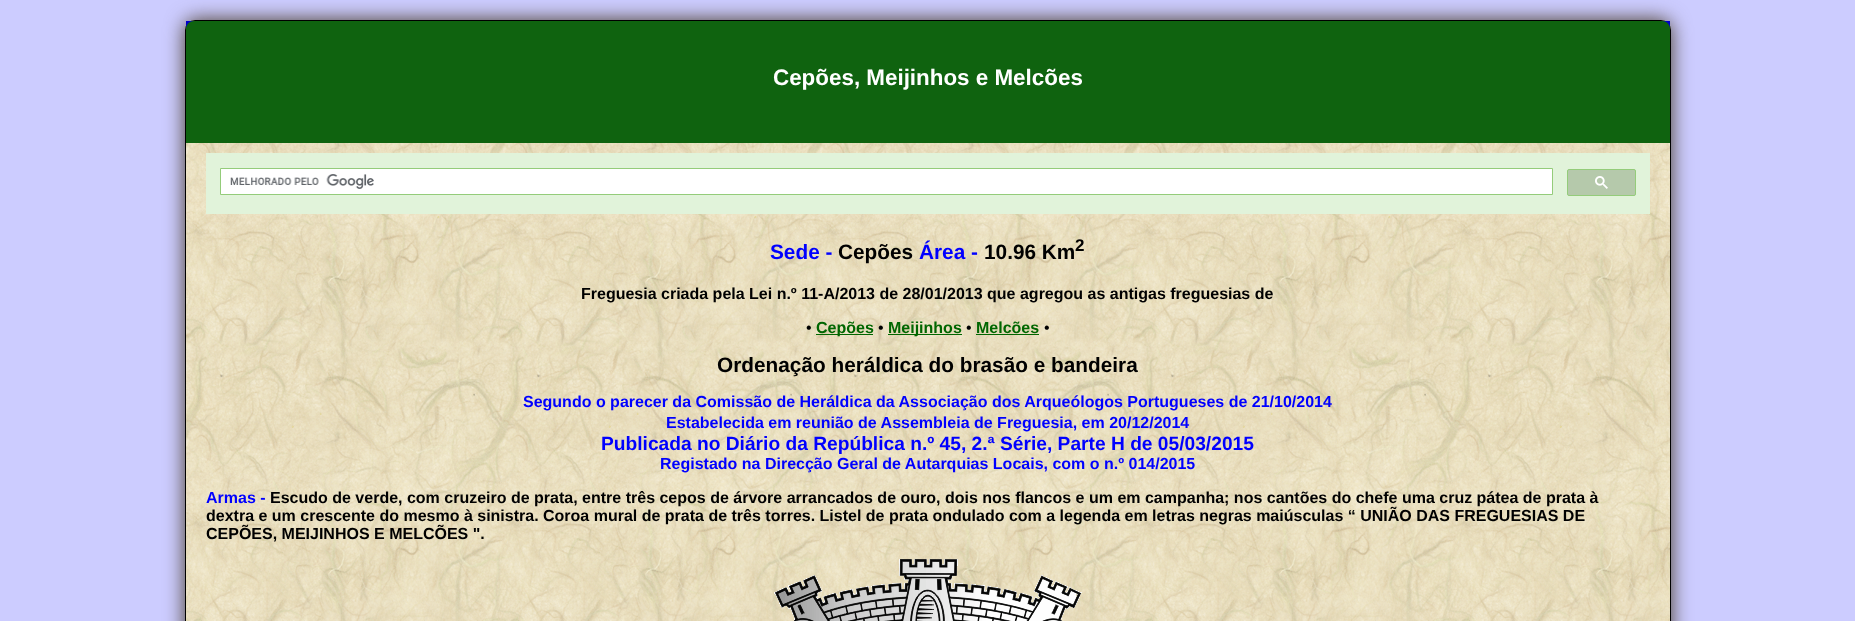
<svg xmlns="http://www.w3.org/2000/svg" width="1855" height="621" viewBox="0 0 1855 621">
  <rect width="100%" height="100%" fill="#ccf"/>
  <rect x="185" y="20" width="1486" height="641" rx="10" fill="#453823" filter="blur(10px)"/>
  <image x="185" y="20" width="1486" height="601" href="img/1.png"/>
  <rect x="185.5" y="20.5" width="1485" height="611" rx="9.5" fill="none" stroke="#000"/>
  <path d="M186 21h1484v8H186z" fill="#00c"/>
  <path d="M194 21H1662C1666.5 21 1670 24.5 1670 29V143H186V29C186 24.5 189.5 21 194 21Z" fill="#0f630f"/>
  <path d="M206 153h1444v61H206z" fill="#e1f3da"/>
  <path d="M220.5 168.5h1332v26H220.5z" fill="#fff" stroke="#94cc7a"/>
  <image x="230" y="174" width="144" height="15" href="img/2.png"/>
  <rect x="1567.5" y="169.5" width="68" height="26" rx="1.5" fill="#b5c9ab" stroke="#94cc7a"/>
  <image x="1595" y="176" width="13" height="13" href="img/3.png"/>
  <path d="M816 334h57v1H816z" fill="#060"/>
  <path d="M888 334h74v1H888z" fill="#060"/>
  <path d="M976 334h63v1H976z" fill="#060"/>
  <image x="774" y="559" width="308" height="62" href="img/4.png"/>
  <text x="773" y="85" font-family="Liberation Sans" font-size="22.4" font-weight="bold" fill="#fff">Cepões, Meijinhos e Melcões</text>
  <text x="770" y="259" font-family="Liberation Sans" font-size="20.8" font-weight="bold" fill="#00f">Sede -</text>
  <text x="838" y="259" font-family="Liberation Sans" font-size="20.8" font-weight="bold" fill="#000">Cepões</text>
  <text x="919" y="259" font-family="Liberation Sans" font-size="20.8" font-weight="bold" fill="#00f">Área -</text>
  <text x="984" y="259" font-family="Liberation Sans" font-size="20.8" font-weight="bold" fill="#000">10.96 Km</text>
  <text x="1075" y="251" font-family="Liberation Sans" font-size="17" font-weight="bold" fill="#000">2</text>
  <text x="581" y="299" font-family="Liberation Sans" font-size="16" font-weight="bold" fill="#000">Freguesia criada pela Lei n.º 11-A/2013 de 28/01/2013 que agregou as antigas freguesias de</text>
  <text x="806" y="333" font-family="Liberation Sans" font-size="16" fill="#000">•</text>
  <text x="816" y="333" font-family="Liberation Sans" font-size="16" font-weight="bold" fill="#060">Cepões</text>
  <text x="878" y="333" font-family="Liberation Sans" font-size="16" fill="#000">•</text>
  <text x="888" y="333" font-family="Liberation Sans" font-size="16" font-weight="bold" fill="#060">Meijinhos</text>
  <text x="966" y="333" font-family="Liberation Sans" font-size="16" fill="#000">•</text>
  <text x="976" y="333" font-family="Liberation Sans" font-size="16" font-weight="bold" fill="#060">Melcões</text>
  <text x="1044" y="333" font-family="Liberation Sans" font-size="16" fill="#000">•</text>
  <text x="717" y="372" font-family="Liberation Sans" font-size="20.8" font-weight="bold" fill="#000">Ordenação heráldica do brasão e bandeira</text>
  <g font-family="Liberation Sans" font-size="16" font-weight="bold" fill="#00f">
    <text x="523" y="407">Segundo o parecer da Comissão de Heráldica da Associação dos Arqueólogos Portugueses de 21/10/2014</text>
    <text x="666" y="428">Estabelecida em reunião de Assembleia de Freguesia, em 20/12/2014</text>
  </g>
  <text x="601" y="450" font-family="Liberation Sans" font-size="19.2" font-weight="bold" fill="#00f">Publicada no Diário da República n.º 45, 2.ª Série, Parte H de 05/03/2015</text>
  <g font-family="Liberation Sans" font-size="16" font-weight="bold" fill="#00f">
    <text x="660" y="469">Registado na Direcção Geral de Autarquias Locais, com o n.º 014/2015</text>
    <text x="206" y="503">Armas -</text>
  </g>
  <g font-family="Liberation Sans" font-size="16" font-weight="bold" fill="#000">
    <text x="270" y="503">Escudo de verde, com cruzeiro de prata, entre três cepos de árvore arrancados de ouro, dois nos flancos e um em campanha; nos cantões do chefe uma cruz pátea de prata à</text>
    <text x="206" y="521">dextra e um crescente do mesmo à sinistra. Coroa mural de prata de três torres. Listel de prata ondulado com a legenda em letras negras maiúsculas “ UNIÃO DAS FREGUESIAS DE</text>
    <text x="206" y="539">CEPÕES, MEIJINHOS E MELCÕES ".</text>
  </g>
</svg>
